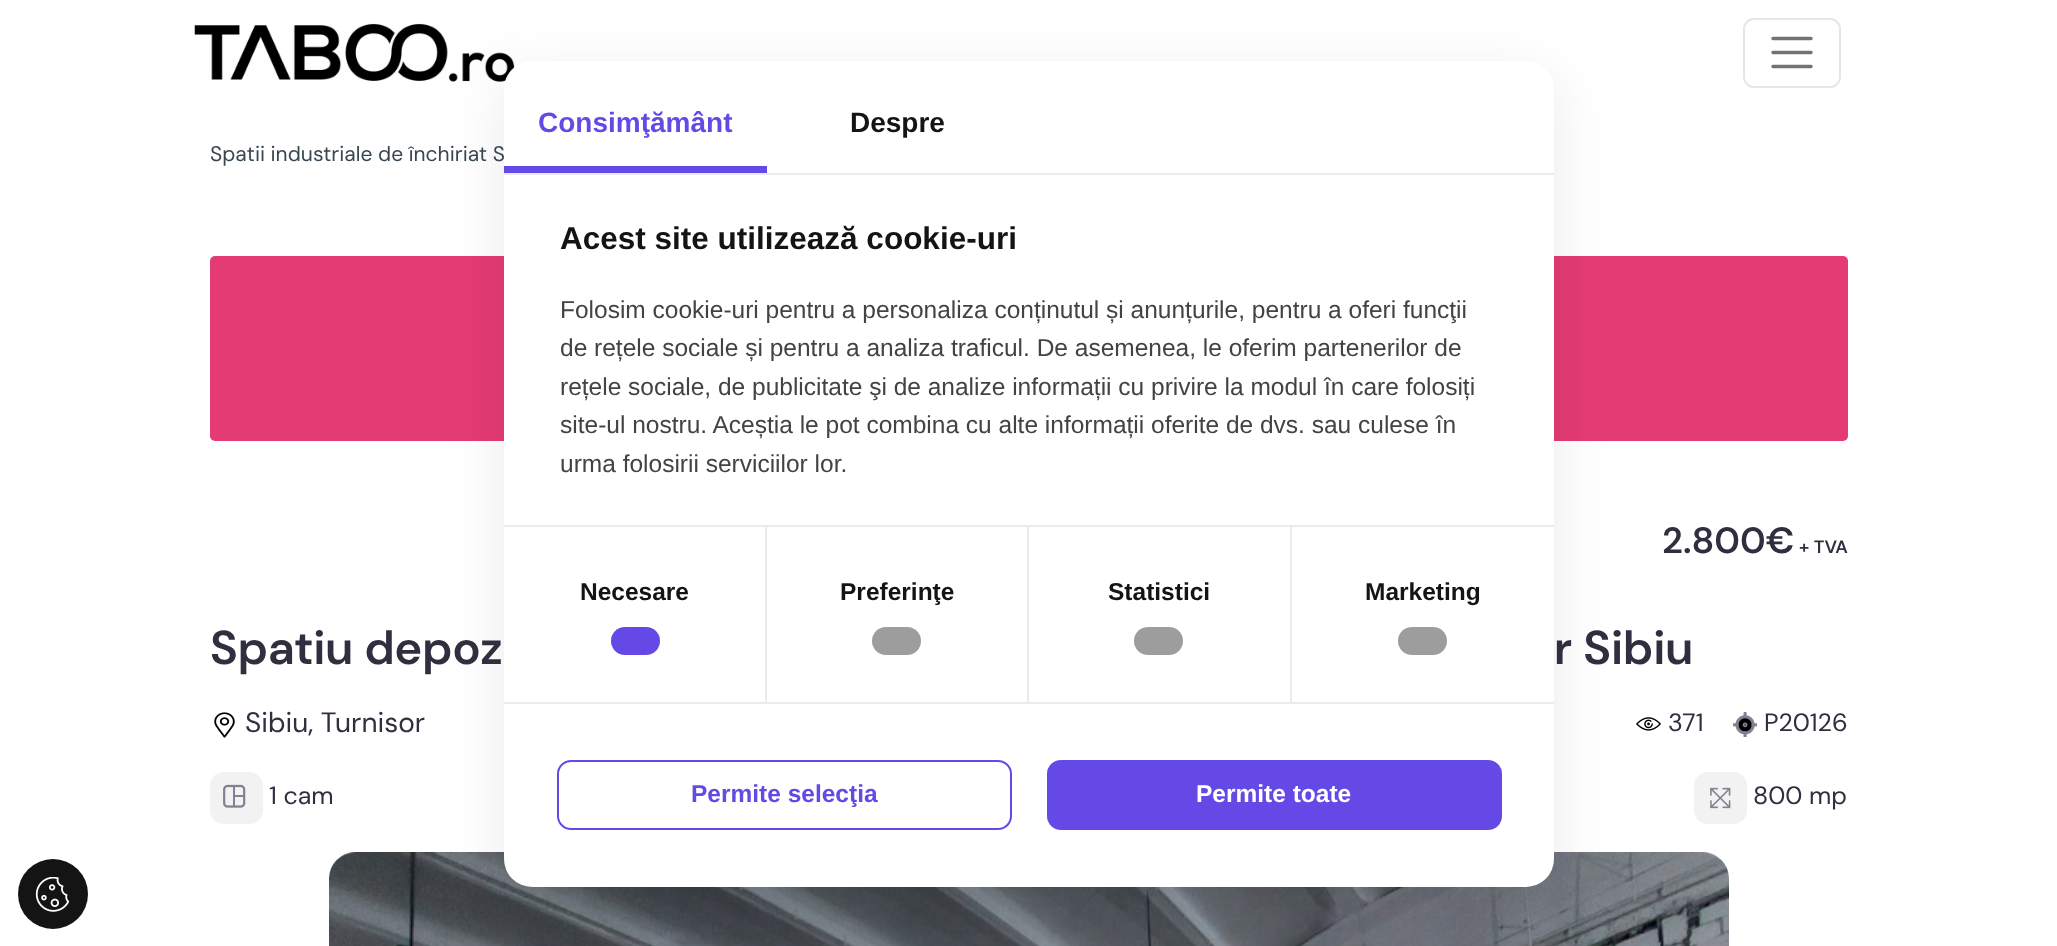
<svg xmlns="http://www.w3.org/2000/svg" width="2057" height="946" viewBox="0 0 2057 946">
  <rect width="100%" height="100%" fill="#fff"/>
  <image x="194" y="23" width="321" height="59" href="img/1.png"/>
  <rect x="210" y="256" width="1638" height="185" rx="5" fill="#e53b75"/>
  <image x="1636" y="717" width="25" height="14" href="img/3.png"/>
  <image x="329" y="852" width="1400" height="94" href="img/7.png"/>
  <rect x="504" y="75" width="1050" height="826" rx="28" fill="#00000014" filter="blur(28px)"/>
  <rect x="1744" y="19" width="96" height="68" rx="10" fill="none" stroke="#e6e6e6" stroke-width="2"/>
  <path d="M1773 38.5H1811M1773 52.5H1811M1773 66.5H1811" fill="none" stroke="#737373" stroke-width="3.5" stroke-linecap="round"/>
  <image x="214" y="712" width="21" height="26" href="img/2.png"/>
  <image x="1733" y="712" width="24" height="25" href="img/4.png"/>
  <rect x="210" y="772" width="53" height="52" rx="14" fill="#f2f2f2"/>
  <image x="223" y="784" width="23" height="24" href="img/5.png"/>
  <rect x="1694" y="772" width="53" height="52" rx="14" fill="#f2f2f2"/>
  <image x="1710" y="787" width="21" height="22" href="img/6.png"/>
  <circle cx="53" cy="894" r="35" fill="#141414"/>
  <image x="35" y="877" width="35" height="35" href="img/8.png"/>
  <text x="210" y="161" font-family="DM Sans" font-size="21" fill="#37474f">Spatii industriale de închiriat S</text>
  <rect x="504" y="61" width="1050" height="826" rx="28" fill="#fff"/>
  <rect x="1398" y="627" width="49" height="28" rx="14" fill="#9d9d9d"/>
  <rect x="1134" y="627" width="49" height="28" rx="14" fill="#9d9d9d"/>
  <rect x="872" y="627" width="49" height="28" rx="14" fill="#9d9d9d"/>
  <rect x="611" y="627" width="49" height="28" rx="14" fill="#6449e7"/>
  <rect x="1047" y="760" width="455" height="70" rx="14" fill="#6449e7"/>
  <text x="1196" y="802" font-family="Liberation Sans" font-size="24.5" font-weight="bold" fill="#fff">Permite toate</text>
  <rect x="558" y="761" width="453" height="68" rx="13" fill="none" stroke="#6449e7" stroke-width="2"/>
  <text x="691" y="802" font-family="Liberation Sans" font-size="24.5" font-weight="bold" fill="#6449e7">Permite selecţia</text>
  <g font-family="Liberation Sans" font-size="24.5" font-weight="bold" fill="#141414">
    <text x="1365" y="600">Marketing</text>
    <text x="1108" y="600">Statistici</text>
  </g>
  <path d="M1290 527h2v175H1290z" fill="#ebebeb"/>
  <text x="840" y="600" font-family="Liberation Sans" font-size="24.5" font-weight="bold" fill="#141414">Preferinţe</text>
  <path d="M1027 527h2v175H1027z" fill="#ebebeb"/>
  <text x="580" y="600" font-family="Liberation Sans" font-size="24.5" font-weight="bold" fill="#141414">Necesare</text>
  <path d="M765 527h2v175H765z" fill="#ebebeb"/>
  <g font-family="Liberation Sans" font-size="24.5" fill="#434343">
    <text x="560" y="472">urma folosirii serviciilor lor.</text>
    <text x="560" y="433">site-ul nostru. Aceștia le pot combina cu alte informații oferite de dvs. sau culese în</text>
    <text x="560" y="395">rețele sociale, de publicitate şi de analize informații cu privire la modul în care folosiți</text>
    <text x="560" y="356">de rețele sociale și pentru a analiza traficul. De asemenea, le oferim partenerilor de</text>
    <text x="560" y="318">Folosim cookie-uri pentru a personaliza conținutul și anunțurile, pentru a oferi funcţii</text>
  </g>
  <text x="560" y="249" font-family="Liberation Sans" font-size="31.5" font-weight="bold" fill="#141414">Acest site utilizează cookie-uri</text>
  <text x="850" y="132" font-family="Liberation Sans" font-size="28" font-weight="bold" fill="#141414">Despre</text>
  <text x="538" y="132" font-family="Liberation Sans" font-size="28" font-weight="bold" fill="#6449e7">Consimţământ</text>
  <path d="M504 166h263v7H504z" fill="#6449e7"/>
  <path d="M504 702h1050v2H504z" fill="#ebebeb"/>
  <path d="M504 525h1050v2H504z" fill="#ebebeb"/>
  <path d="M504 173h1050v2H504z" fill="#ebebeb"/>
  <text x="1662" y="553" font-family="DM Sans" font-size="36.5" font-weight="600" fill="#2f2f40">2.800€</text>
  <text x="1799" y="553" font-family="'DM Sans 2'" font-size="18" font-weight="600" fill="#2f2f40">+ TVA</text>
  <g font-family="'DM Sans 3'" font-size="47.25" font-weight="600" fill="#2f2f40">
    <text x="210" y="664">Spatiu depoz</text>
    <text x="1554" y="664">r Sibiu</text>
  </g>
  <text x="245" y="732" font-family="'DM Sans 2'" font-size="28" fill="#2f2f40">Sibiu, Turnisor</text>
  <g font-family="'DM Sans 3'" font-size="25" fill="#2f2f40">
    <text x="1668" y="731">371</text>
    <text x="1764" y="731">P20126</text>
    <text x="269" y="804">1 cam</text>
    <text x="1753" y="804">800 mp</text>
  </g>
</svg>
